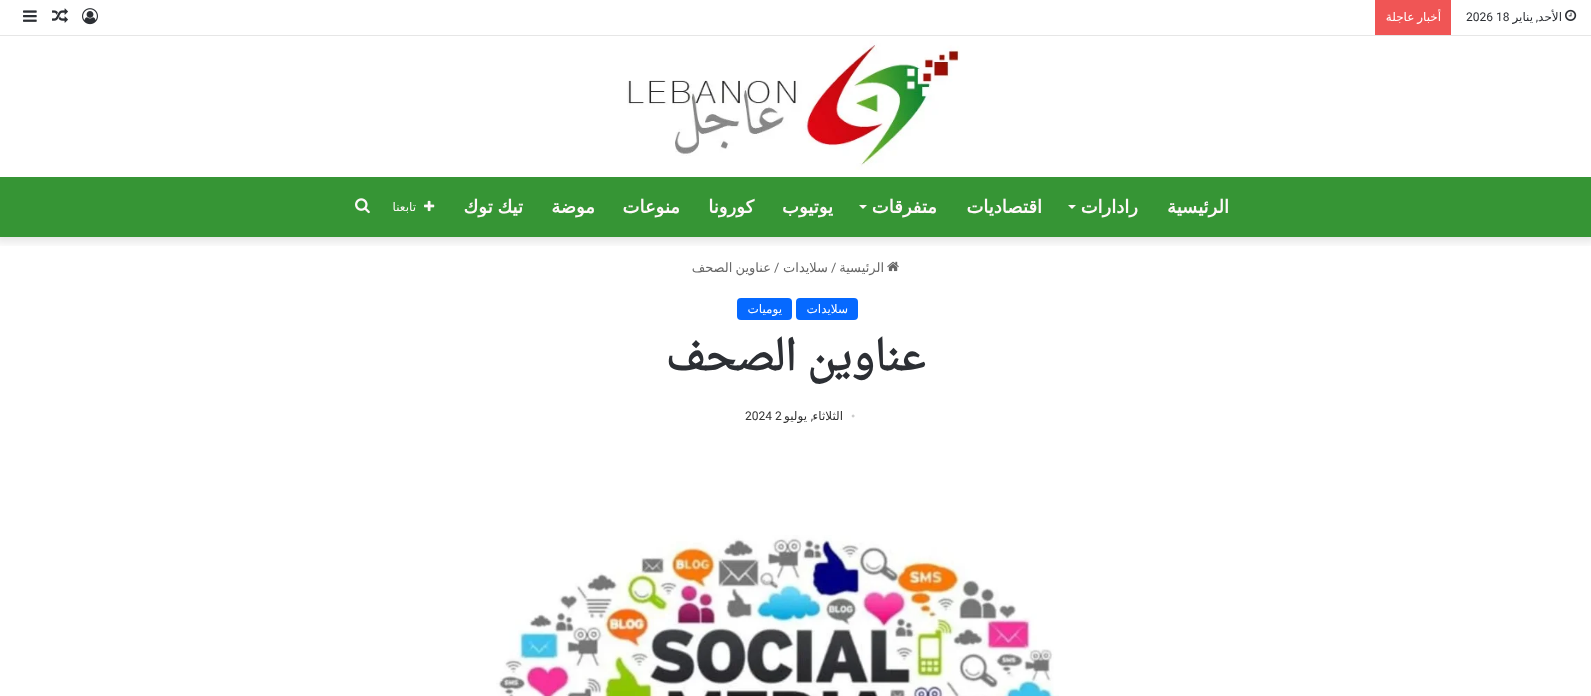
<svg xmlns="http://www.w3.org/2000/svg" width="1591" height="696" viewBox="0 0 1591 696">
  <defs>
    <clipPath id="clip1"><path d="M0 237h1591v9H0z"/></clipPath>
  </defs>
  <rect width="100%" height="100%" fill="#fff"/>
  <g clip-path="url(#clip1)">
    <path d="M-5 -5h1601v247H-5z" fill="#0000001a" filter="blur(5px)"/>
  </g>
  <path d="M0 35h1591v1H0z" fill="#e6e6e6"/>
  <image x="1565" y="9" width="12" height="12" href="img/1.png"/>
  <path d="M1375 0h76v35H1375z" fill="#f05555"/>
  <image x="82" y="8" width="16" height="17" href="img/2.png"/>
  <image x="52" y="8" width="16" height="15" href="img/3.png"/>
  <image x="23" y="10" width="14" height="12" href="img/4.png"/>
  <image x="627" y="40" width="333" height="130" href="img/5.png"/>
  <path d="M0 177h1591v60H0z" fill="#369535"/>
  <path d="M1068 205H1076L1072 209Z" fill="#fff7f9"/>
  <path d="M859 205H867L863 209Z" fill="#fff7f9"/>
  <image x="424" y="200" width="11" height="12" href="img/6.png"/>
  <image x="355" y="198" width="15" height="16" href="img/7.png"/>
  <image x="887" y="261" width="12" height="11" href="img/8.png"/>
  <rect x="796" y="298" width="62" height="22" rx="4" fill="#0669ff"/>
  <rect x="737" y="298" width="55" height="22" rx="4" fill="#0669ff"/>
  <image x="496" y="535" width="563" height="161" href="img/9.png"/>
  <text x="1562" y="21" font-family="DejaVu Sans" font-size="12" direction="rtl" fill="#2c2f34">الأحد</text>
  <text x="1538" y="21" font-family="Roboto" font-size="12" direction="rtl" fill="#2c2f34">,</text>
  <text x="1533" y="21" font-family="DejaVu Sans" font-size="12" direction="rtl" fill="#2c2f34">يناير</text>
  <text x="1466" y="21" font-family="Roboto" font-size="12" fill="#2c2f34">2026 18</text>
  <text x="1441" y="21" word-spacing="-1" font-family="DejaVu Sans" font-size="12" direction="rtl" fill="#fff">أخبار عاجلة</text>
  <g font-family="DejaVu Sans" font-size="18" font-weight="bold" direction="rtl" fill="#fff7f9">
    <text x="1229" y="213">الرئيسية</text>
    <text x="1138" y="213">رادارات</text>
    <text x="1042" y="213">اقتصاديات</text>
    <text x="937" y="213">متفرقات</text>
    <text x="833" y="213">يوتيوب</text>
    <text x="754" y="213">كورونا</text>
    <text x="680" y="213">منوعات</text>
    <text x="595" y="213">موضة</text>
    <text x="523" y="213" word-spacing="-1">تيك توك</text>
  </g>
  <text x="416" y="211" font-family="DejaVu Sans" font-size="12" direction="rtl" fill="#fff7f9">تابعنا</text>
  <text x="884" y="272" font-family="DejaVu Sans" font-size="13" direction="rtl" fill="#666">الرئيسية</text>
  <text x="831" y="272" font-family="Roboto" font-size="13" fill="#666">/</text>
  <text x="828" y="272" font-family="DejaVu Sans" font-size="13" direction="rtl" fill="#666">سلايدات</text>
  <text x="774" y="272" font-family="Roboto" font-size="13" fill="#666">/</text>
  <text x="771" y="272" word-spacing="-1" font-family="DejaVu Sans" font-size="13" direction="rtl" fill="#666">عناوين الصحف</text>
  <g font-family="DejaVu Sans" font-size="12" direction="rtl" fill="#fff">
    <text x="848" y="313">سلايدات</text>
    <text x="782" y="313">يوميات</text>
  </g>
  <text x="925" y="370" font-family="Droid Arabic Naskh" font-size="41" font-weight="bold" direction="rtl" fill="#2c2f34">عناوين الصحف</text>
  <text x="851" y="420" font-family="Liberation Serif" font-size="12" fill="#ccc">•</text>
  <g font-family="DejaVu Sans" font-size="12" direction="rtl" fill="#333">
    <text x="843" y="420">الثلاثاء</text>
    <text x="807" y="420">يوليو</text>
  </g>
  <text x="745" y="420" font-family="Roboto" font-size="12" fill="#333">2024 2</text>
  <text x="813" y="420" font-family="Roboto" font-size="12" direction="rtl" fill="#333">,</text>
</svg>
